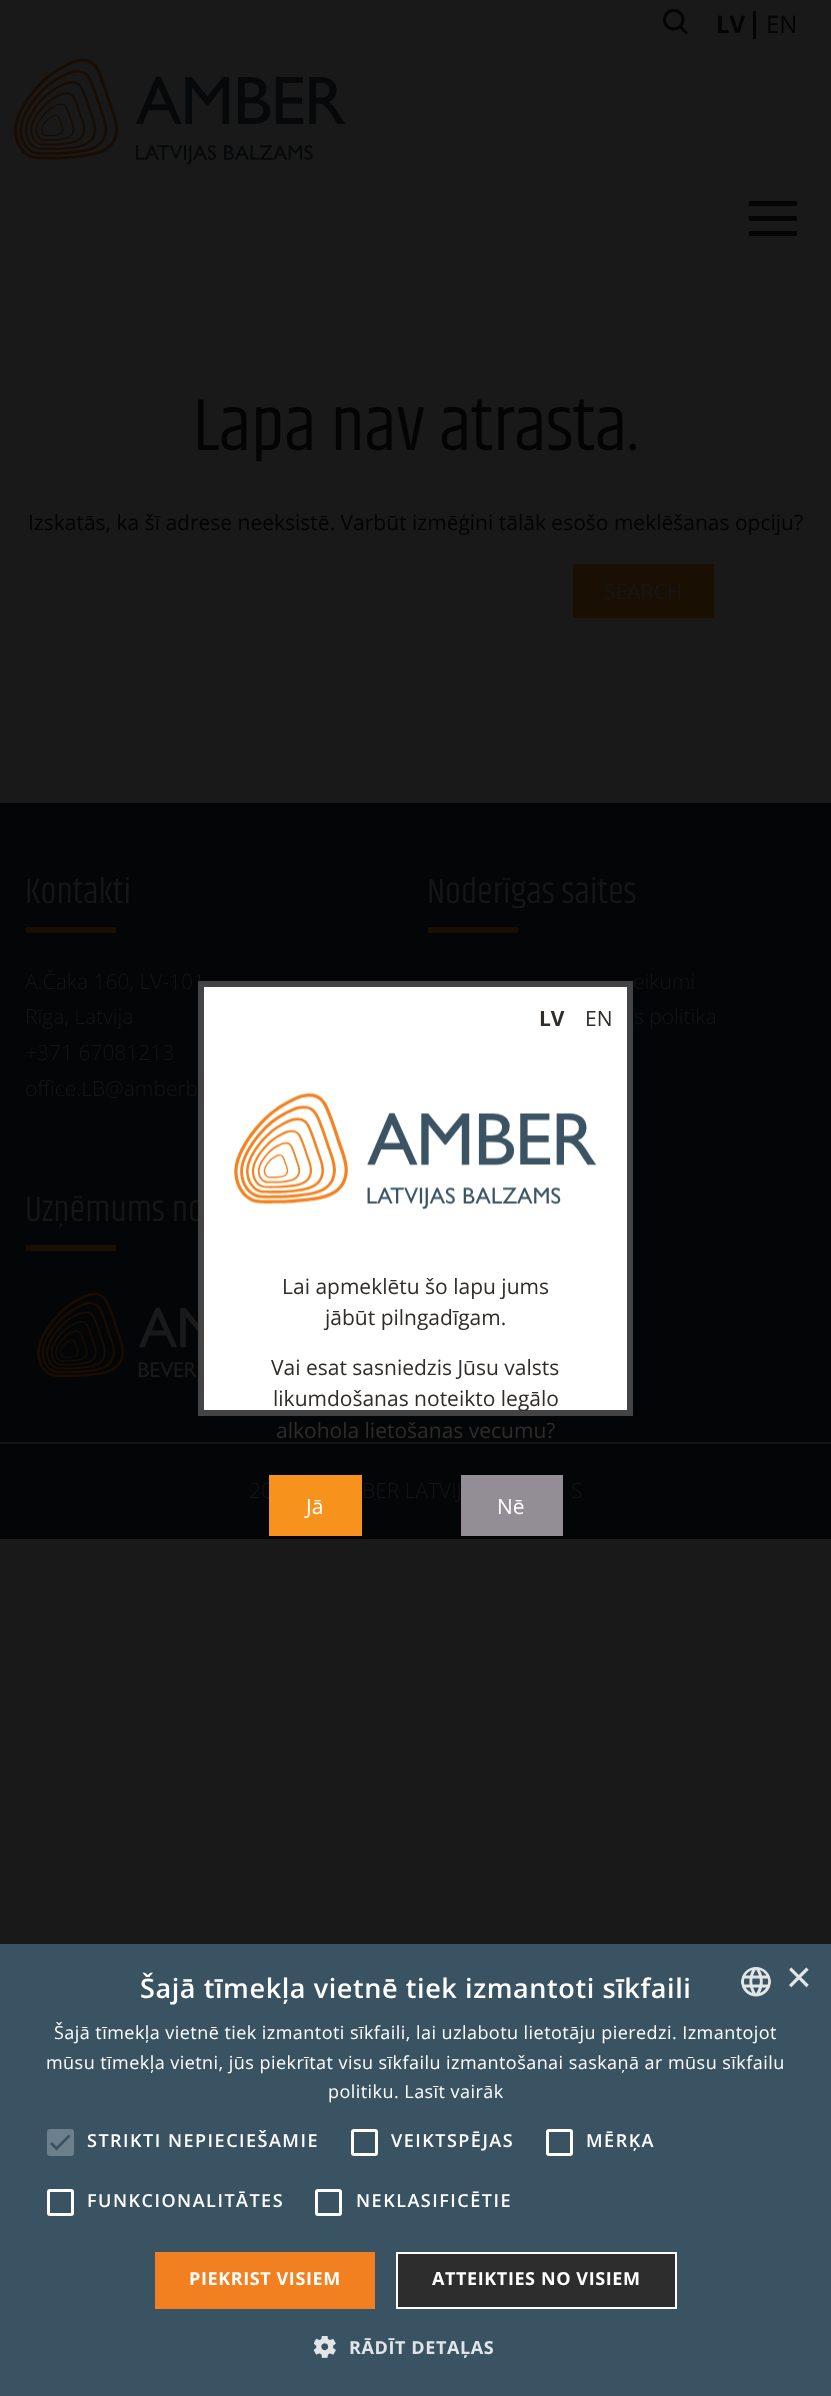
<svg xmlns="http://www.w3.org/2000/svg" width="831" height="2396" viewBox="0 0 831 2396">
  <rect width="100%" height="100%" fill="#191919"/>
  <image x="663" y="9" width="25" height="26" href="img/1.png"/>
  <path d="M753 11h3v28H753z" fill="#050404"/>
  <image x="14" y="58" width="332" height="107" href="img/2.png"/>
  <path d="M749 201h48v5H749z" fill="#050404"/>
  <path d="M749 216h48v5H749z" fill="#050404"/>
  <path d="M749 231h48v5H749z" fill="#050404"/>
  <path d="M573 564h141v54H573z" fill="#190f03"/>
  <path d="M0 803h831v736H0z" fill="#040507"/>
  <path d="M0 1442h831v2H0z" fill="#161617"/>
  <path d="M26 927h90v6H26z" fill="#190f03"/>
  <path d="M428 927h90v6H428z" fill="#190f03"/>
  <path d="M26 1245h90v6H26z" fill="#190f03"/>
  <image x="37" y="1292" width="161" height="86" href="img/3.png"/>
  <path d="M461 1475h102v61H461z" fill="#938d95"/>
  <path d="M0 1944h831v452H0z" fill="#395363"/>
  <image x="741" y="1967" width="30" height="30" href="img/5.png"/>
  <rect x="47" y="2129" width="27" height="27" rx="3" fill="#6c808c"/>
  <path d="M51 2143L56.5 2148.5L69.5 2135.5" fill="none" stroke="#395363" stroke-width="2.7"/>
  <rect x="352.5" y="2130.5" width="24" height="24" rx="1.5" fill="none" stroke="#fff" stroke-width="3"/>
  <rect x="547.5" y="2130.5" width="24" height="24" rx="1.5" fill="none" stroke="#fff" stroke-width="3"/>
  <rect x="48.5" y="2190.5" width="24" height="24" rx="1.5" fill="none" stroke="#fff" stroke-width="3"/>
  <rect x="316.5" y="2190.5" width="24" height="24" rx="1.5" fill="none" stroke="#fff" stroke-width="3"/>
  <path d="M155 2252h220v57H155z" fill="#f38020"/>
  <path d="M397 2253h279v55H397z" fill="#2d2d2d" stroke="#fff" stroke-width="2"/>
  <image x="314" y="2336" width="22" height="22" href="img/6.png"/>
  <text x="716" y="33" font-family="Open Sans" font-size="24" font-weight="bold" fill="#050404">LV</text>
  <text x="766" y="33" font-family="Open Sans" font-size="24" fill="#050404">EN</text>
  <text x="193" y="450" font-family="Khand" font-size="75" fill="#050404">Lapa nav atrasta.</text>
  <text x="28" y="530" font-family="Open Sans" font-size="21" fill="#050404">Izskatās, ka šī adrese neeksistē. Varbūt izmēģini tālāk esošo meklēšanas opciju?</text>
  <text x="604" y="599" font-family="Open Sans" font-size="21" fill="#161617">SEARCH</text>
  <text x="25" y="903" font-family="Khand" font-size="36" fill="#161617">Kontakti</text>
  <g font-family="Open Sans" font-size="21" font-weight="300" fill="#161617">
    <text x="25" y="989">A.Čaka 160, LV-101</text>
    <text x="25" y="1024">Rīga, Latvija</text>
    <text x="25" y="1060">+371 67081213</text>
    <text x="25" y="1096">office.LB@amberb</text>
  </g>
  <text x="427" y="903" font-family="Khand" font-size="36" fill="#161617">Noderīgas saites</text>
  <g font-family="Open Sans" font-size="21" font-weight="300" fill="#161617">
    <text x="633" y="989">eikumi</text>
    <text x="634" y="1024">s politika</text>
  </g>
  <text x="25" y="1221" font-family="Khand" font-size="36" fill="#161617">Uzņēmums no</text>
  <g font-family="Open Sans" font-size="21" font-weight="300" fill="#161617">
    <text x="249" y="1498">20</text>
    <text x="362" y="1498">BER LATVIJ</text>
    <text x="571" y="1498">S</text>
  </g>
  <path d="M201 984h429v429H201z" fill="#fff" stroke="#444" stroke-width="6"/>
  <text x="539" y="1026" font-family="Open Sans" font-size="21" font-weight="bold" fill="#2f2c29">LV</text>
  <text x="585" y="1026" font-family="Open Sans" font-size="21" fill="#2f2c29">EN</text>
  <image x="234" y="1093" width="363" height="117" href="img/4.png"/>
  <g font-family="Open Sans" font-size="21" fill="#2f2c29">
    <text x="282" y="1294">Lai apmeklētu šo lapu jums</text>
    <text x="325" y="1325">jābūt pilngadīgam.</text>
    <text x="271" y="1375">Vai esat sasniedzis Jūsu valsts</text>
    <text x="273" y="1406">likumdošanas noteikto legālo</text>
    <text x="276" y="1438">alkohola lietošanas vecumu?</text>
  </g>
  <path d="M269 1475h93v61H269z" fill="#f7921d"/>
  <g font-family="Open Sans" font-size="21" fill="#fff">
    <text x="306" y="1514">Jā</text>
    <text x="497" y="1514">Nē</text>
  </g>
  <text x="140" y="1998" font-family="Open Sans" font-size="27" font-weight="600" letter-spacing="0.6" fill="#fff">Šajā tīmekļa vietnē tiek izmantoti sīkfaili</text>
  <text x="786" y="1992" font-family="Liberation Sans" font-size="44" fill="#e1e5e8">×</text>
  <g font-family="Open Sans" font-size="18" letter-spacing="0.45" fill="#fff">
    <text x="54" y="2039">Šajā tīmekļa vietnē tiek izmantoti sīkfaili, lai uzlabotu lietotāju pieredzi. Izmantojot</text>
    <text x="46" y="2069">mūsu tīmekļa vietni, jūs piekrītat visu sīkfailu izmantošanai saskaņā ar mūsu sīkfailu</text>
    <text x="328" y="2098">politiku. Lasīt vairāk</text>
  </g>
  <g font-family="Open Sans" font-size="18" font-weight="600" letter-spacing="1.5" fill="#fff">
    <text x="87" y="2147">STRIKTI NEPIECIEŠAMIE</text>
    <text x="391" y="2147">VEIKTSPĒJAS</text>
    <text x="586" y="2147">MĒRĶA</text>
    <text x="87" y="2207">FUNKCIONALITĀTES</text>
    <text x="356" y="2207">NEKLASIFICĒTIE</text>
  </g>
  <g font-family="Open Sans" font-size="18" font-weight="bold" letter-spacing="0.6" fill="#fff">
    <text x="189" y="2285">PIEKRIST VISIEM</text>
    <text x="432" y="2285">ATTEIKTIES NO VISIEM</text>
  </g>
  <text x="349" y="2354" font-family="Open Sans" font-size="18" font-weight="bold" letter-spacing="0.6" fill="#e1e5e8">RĀDĪT DETAĻAS</text>
</svg>
